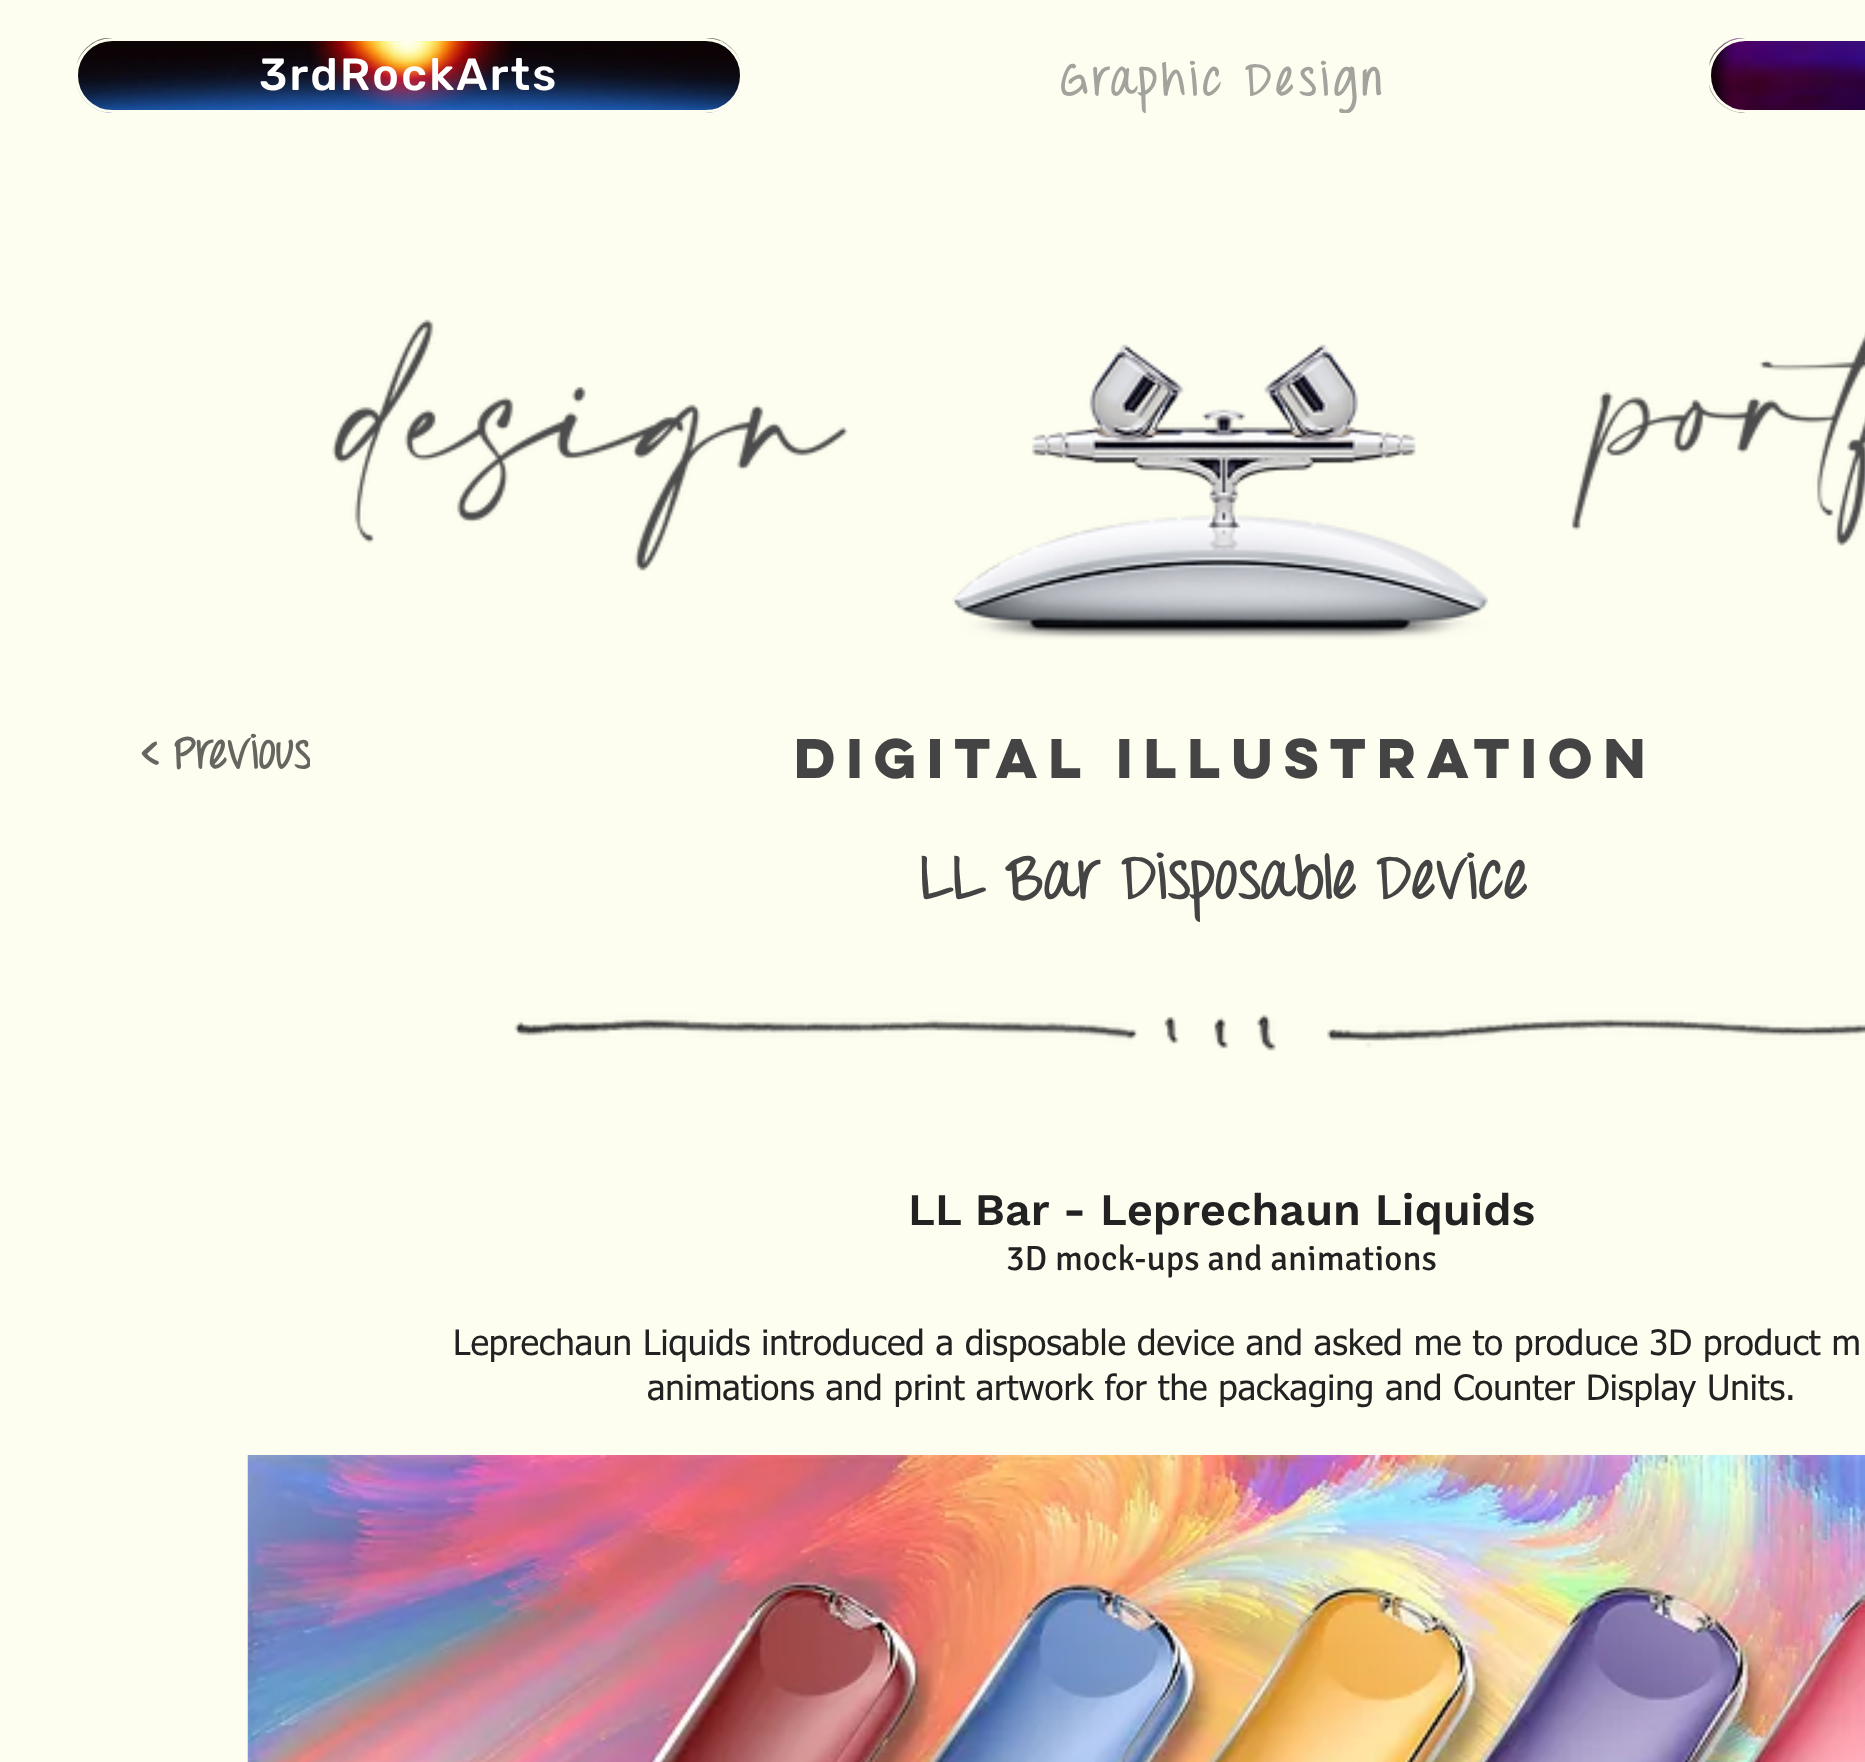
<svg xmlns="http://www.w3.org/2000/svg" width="1865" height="1762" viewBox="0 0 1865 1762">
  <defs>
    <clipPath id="clip1"><path d="M1060 53h328v60H1060z"/></clipPath>
    <clipPath id="clip2"><path d="M140 723h170v65H140z"/></clipPath>
  </defs>
  <rect width="100%" height="100%" fill="#fefef0"/>
  <image x="77" y="38" width="663" height="75" href="img/1.png"/>
  <rect x="76.5" y="39.5" width="665" height="72" rx="36" fill="none" stroke="#fdfdf0" stroke-width="3"/>
  <image x="1709" y="38" width="156" height="75" href="img/2.png"/>
  <rect x="1709.5" y="39.5" width="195" height="72" rx="36" fill="none" stroke="#fdfdf0" stroke-width="3"/>
  <image x="332" y="319" width="517" height="252" href="img/3.png"/>
  <image x="952" y="344" width="537" height="296" href="img/4.png"/>
  <image x="1571" y="332" width="294" height="214" href="img/5.png"/>
  <image x="514" y="1014" width="1351" height="37" href="img/6.png"/>
  <image x="247" y="1455" width="1618" height="307" href="img/7.png"/>
  <text x="259" y="90" font-family="Rubik" font-size="45" font-weight="500" letter-spacing="2.25" fill="#fff">3rdRockArts</text>
  <g clip-path="url(#clip1)">
    <text x="1060" y="95" font-family="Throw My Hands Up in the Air" font-size="45" font-weight="bold" letter-spacing="4.5" fill="#a3a39d">Graphic Design</text>
  </g>
  <g clip-path="url(#clip2)">
    <text x="140" y="768" font-family="Throw My Hands Up in the Air" font-size="45" font-weight="bold" fill="#666660">&lt; Previous</text>
  </g>
  <text x="794" y="778" font-family="'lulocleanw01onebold'" font-size="50" font-weight="bold" fill="#444">DIGITAL ILLUSTRATION</text>
  <text x="921" y="898" font-family="Throw My Hands Up in the Air" font-size="60" font-weight="bold" fill="#444">LL Bar Disposable Device</text>
  <text x="908" y="1225" font-family="Work Sans" font-size="45" font-weight="600" fill="#222">LL Bar - Leprechaun Liquids</text>
  <text x="1006" y="1270" font-family="Signika" font-size="35" fill="#222">3D mock-ups and animations</text>
  <g font-family="tahoma" font-size="35" fill="#222">
    <text x="453" y="1355">Leprechaun Liquids introduced a disposable device and asked me to produce 3D product m</text>
    <text x="647" y="1400">animations and print artwork for the packaging and Counter Display Units.</text>
  </g>
</svg>
